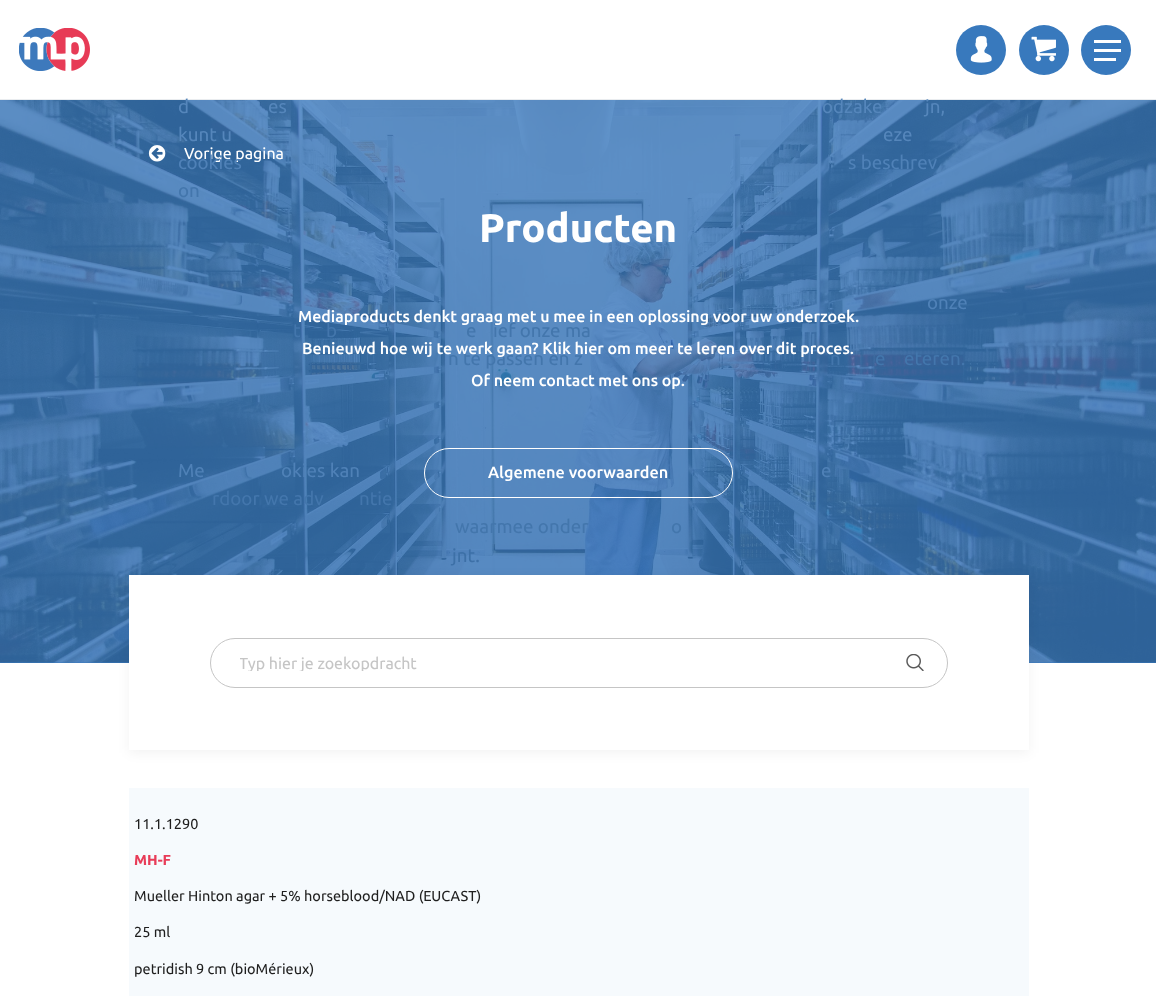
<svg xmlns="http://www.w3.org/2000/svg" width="1156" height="996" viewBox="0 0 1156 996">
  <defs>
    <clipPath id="clip1"><path d="M240 654h645v17H240z"/></clipPath>
  </defs>
  <rect width="100%" height="100%" fill="#fff"/>
  <path d="M0 99h1156v1H0z" fill="#e9ecef"/>
  <image x="19" y="28" width="71" height="43" href="img/1.png"/>
  <circle cx="981" cy="50" r="25" fill="#3879bd"/>
  <image x="970" y="36" width="22" height="27" href="img/2.png"/>
  <circle cx="1044" cy="50" r="25" fill="#3879bd"/>
  <image x="1031" y="36" width="25" height="26" href="img/3.png"/>
  <circle cx="1106" cy="50" r="25" fill="#3879bd"/>
  <path d="M1094 40h27v3H1094z" fill="#fff"/>
  <path d="M1094 49h27v3H1094z" fill="#fff"/>
  <path d="M1094 58h22v3H1094z" fill="#fff"/>
  <path d="M0 662h1156v1H0z" fill="#3879bd"/>
  <image x="0" y="100" width="1156" height="563" href="img/4.png"/>
  <image x="148" y="145" width="18" height="17" href="img/5.png"/>
  <rect x="424.5" y="448.5" width="308" height="49" rx="24.5" fill="none" stroke="#fff"/>
  <path d="M129 578h900v175H129z" fill="#0000000d" filter="blur(6px)"/>
  <path d="M129 575h900v175H129z" fill="#fff"/>
  <image x="906" y="654" width="18" height="17" href="img/6.png"/>
  <rect x="210.5" y="638.5" width="737" height="49" rx="24.5" fill="none" stroke="#c5c5c5"/>
  <path d="M129 788h900v208H129z" fill="#f6fafd"/>
  <g font-family="Ubuntu" font-size="18.75" fill="#5586bb">
    <text x="178" y="113">d</text>
    <text x="268" y="113">es</text>
    <text x="822" y="113">odzake</text>
    <text x="925" y="113">jn,</text>
    <text x="178" y="141">kunt u</text>
    <text x="883" y="141">eze</text>
  </g>
  <text x="848" y="169" font-family="Ubuntu" font-size="18.75" fill="#4f81b7">s beschrev</text>
  <text x="178" y="197" font-family="Ubuntu" font-size="18.75" fill="#4376ac">on</text>
  <text x="927" y="309" font-family="Ubuntu" font-size="18.75" fill="#4f81b7">onze</text>
  <g font-family="Ubuntu" font-size="18.75" fill="#4376ac">
    <text x="293" y="337">t</text>
    <text x="326" y="337">b</text>
    <text x="466" y="337">e</text>
    <text x="493" y="337">ief onze ma</text>
    <text x="448" y="365">n te passen en z</text>
    <text x="830" y="365">n</text>
    <text x="875" y="365">e</text>
    <text x="904" y="365">eteren.</text>
  </g>
  <g font-family="Ubuntu" font-size="18.75" fill="#4f81b7">
    <text x="178" y="477">Me</text>
    <text x="281" y="477">okies kan</text>
    <text x="821" y="477">e</text>
  </g>
  <g font-family="Ubuntu" font-size="18.75" fill="#4376ac">
    <text x="212" y="505">rdoor we adv</text>
    <text x="359" y="505">ntie</text>
    <text x="875" y="505">.</text>
    <text x="455" y="533">waarmee onder</text>
    <text x="671" y="533">o</text>
  </g>
  <text x="452" y="562" font-family="Ubuntu" font-size="18.75" fill="#3d70a7">jnt.</text>
  <text x="184" y="159" font-family="Ubuntu" font-size="16" fill="#fff">Vorige pagina</text>
  <text x="178" y="169" font-family="Ubuntu" font-size="18.75" fill="#4f81b7">cookies</text>
  <text x="479" y="242" font-family="Ubuntu" font-size="40" font-weight="bold" fill="#fff">Producten</text>
  <g font-family="Ubuntu" font-size="16" font-weight="500" fill="#fff">
    <text x="298" y="322">Mediaproducts denkt graag met u mee in een oplossing voor uw onderzoek.</text>
    <text x="302" y="354">Benieuwd hoe wij te werk gaan? Klik hier om meer te leren over dit proces.</text>
    <text x="471" y="386">Of neem contact met ons op.</text>
  </g>
  <text x="488" y="478" font-family="Ubuntu" font-size="16.25" font-weight="500" fill="#fff">Algemene voorwaarden</text>
  <g clip-path="url(#clip1)">
    <text x="239" y="669" font-family="Ubuntu" font-size="16" fill="#c5c5c5">Typ hier je zoekopdracht</text>
  </g>
  <text x="134" y="829" font-family="Ubuntu" font-size="14.5" fill="#1f1f1f">11.1.1290</text>
  <text x="134" y="865" font-family="Ubuntu" font-size="14.5" font-weight="bold" fill="#e83c58">MH-F</text>
  <g font-family="Ubuntu" font-size="14.5" fill="#1f1f1f">
    <text x="134" y="901">Mueller Hinton agar + 5% horseblood/NAD (EUCAST)</text>
    <text x="134" y="937">25 ml</text>
    <text x="134" y="974">petridish 9 cm (bioMérieux)</text>
  </g>
</svg>
